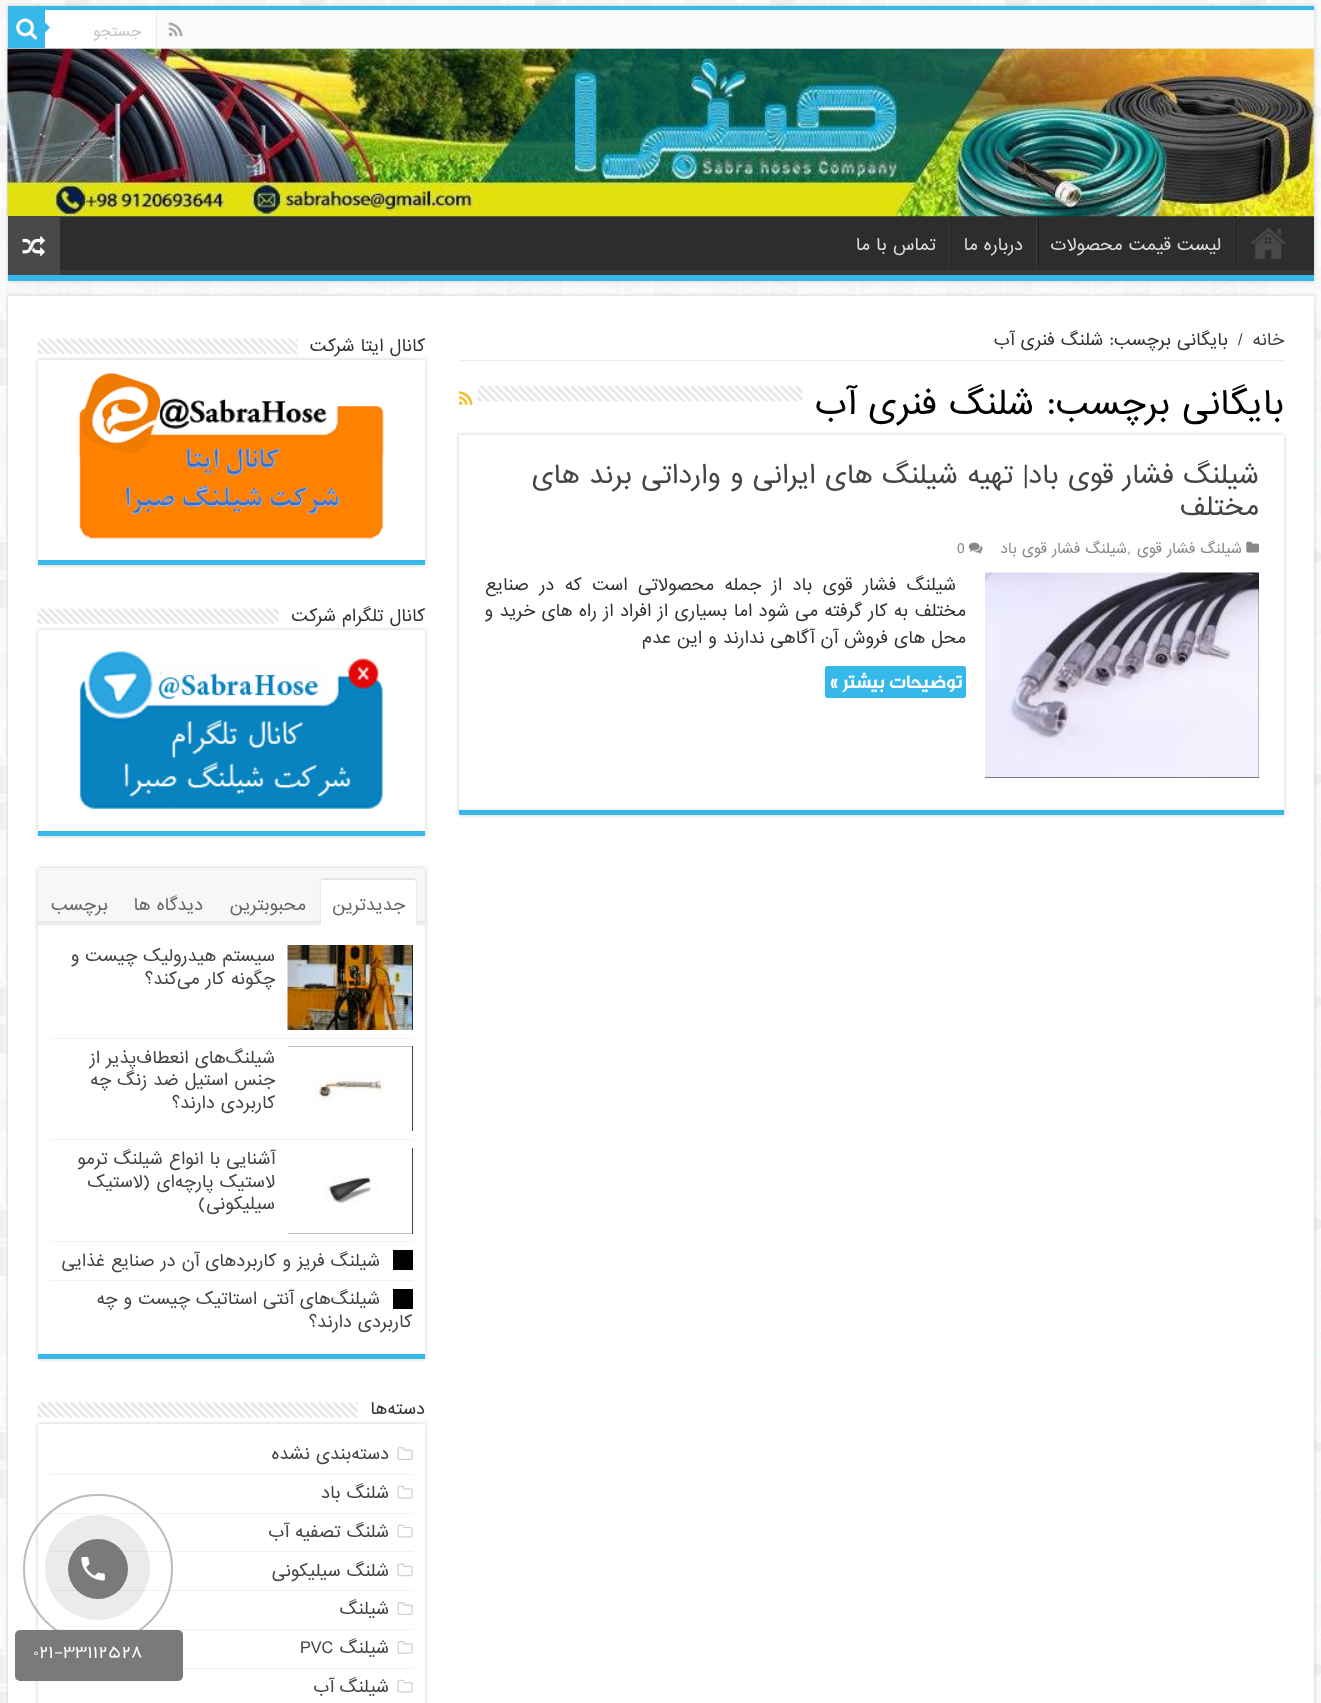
<svg xmlns="http://www.w3.org/2000/svg" width="1321" height="1703" viewBox="0 0 1321 1703">
  <defs>
    <clipPath id="clip1"><path d="M8 216h1306v59H8z"/></clipPath>
    <clipPath id="clip2"><path d="M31 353H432V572H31ZM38 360H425V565H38Z" clip-rule="evenodd"/></clipPath>
    <clipPath id="clip3"><path d="M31 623H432V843H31ZM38 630H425V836H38Z" clip-rule="evenodd"/></clipPath>
    <clipPath id="clip4"><path d="M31 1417H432V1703H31ZM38 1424H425V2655H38Z" clip-rule="evenodd"/></clipPath>
  </defs>
  <rect width="100%" height="100%" fill="#fff"/>
  <image x="0" y="0" width="1321" height="1703" href="img/1.png"/>
  <path d="M8 6h1306v275H8z" fill="#cacaca" filter="blur(2px)"/>
  <path d="M8 6h1306v4H8z" fill="#37b8eb"/>
  <path d="M157 10h1157v38H157z" fill="#fbfbfb"/>
  <path d="M8 48h1306v1H8z" fill="#ececec"/>
  <image x="168" y="22" width="15" height="15" href="img/2.png"/>
  <path d="M45 10h111v38H45z" fill="#fff"/>
  <path d="M156 10h1v38H156z" fill="#ececec"/>
  <path d="M8 10h37v38H8z" fill="#37b8eb"/>
  <image x="16" y="18" width="22" height="22" href="img/3.png"/>
  <path d="M45 32.5V22.5L50 27.5Z" fill="#37b8eb"/>
  <path d="M60 216h1254v54H60z" fill="#2d2d2d"/>
  <image x="7" y="48" width="1307" height="169" href="img/4.png"/>
  <g clip-path="url(#clip1)">
    <path d="M-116 92H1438V399H-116ZM6 209H1312C1313 209 1314 209 1314 210V269C1314 269 1313 270 1312 270H6C6 270 5 269 5 269V210C5 209 6 209 6 209Z" fill="#393939" fill-rule="evenodd"/>
  </g>
  <path d="M8 275h1306v6H8z" fill="#37b8eb"/>
  <image x="1250" y="227" width="37" height="32" href="img/5.png"/>
  <path d="M1235 216h1v53H1235z" fill="#222"/>
  <path d="M1234 216h1v53H1234z" fill="#383838"/>
  <path d="M1038 216h1v53H1038z" fill="#222"/>
  <path d="M1036 216h1v53H1036z" fill="#383838"/>
  <path d="M950 216h1v53H950z" fill="#222"/>
  <path d="M949 216h1v53H949z" fill="#383838"/>
  <path d="M8 216h52v59H8z" fill="#494949"/>
  <image x="22" y="236" width="23" height="21" href="img/6.png"/>
  <path d="M8 296h1306v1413H8z" fill="#cacaca" filter="blur(2px)"/>
  <path d="M8 296h1306v1407H8z" fill="#fff"/>
  <path d="M459 360h825v1H459z" fill="#eee"/>
  <image x="477" y="386" width="326" height="16" href="img/7.png"/>
  <image x="459" y="391" width="14" height="14" href="img/8.png"/>
  <path d="M459 435h825v380H459z" fill="#cacaca" filter="blur(2px)"/>
  <path d="M459 435h825v374H459z" fill="#fff"/>
  <path d="M459 810h825v5H459z" fill="#37b8eb"/>
  <path d="M459 809h825v1H459z" fill="#f2f2f2"/>
  <image x="1246" y="541" width="14" height="12" href="img/9.png"/>
  <image x="968" y="542" width="15" height="12" href="img/10.png"/>
  <path d="M985 573h274v205H985z" fill="#000"/>
  <image x="985" y="572" width="274" height="206" href="img/11.png"/>
  <rect x="825" y="666" width="141" height="32" rx="2.5" fill="#37b8eb"/>
  <g clip-path="url(#clip2)">
    <path d="M38 360h387v205H38z" fill="#cacaca" filter="blur(2px)"/>
  </g>
  <image x="37" y="338" width="261" height="16" href="img/12.png"/>
  <path d="M38 560h387v5H38z" fill="#37b8eb"/>
  <image x="78" y="372" width="306" height="167" href="img/13.png"/>
  <g clip-path="url(#clip3)">
    <path d="M38 630h387v206H38z" fill="#cacaca" filter="blur(2px)"/>
  </g>
  <image x="37" y="608" width="242" height="16" href="img/14.png"/>
  <path d="M38 831h387v5H38z" fill="#37b8eb"/>
  <image x="79" y="650" width="305" height="160" href="img/15.png"/>
  <path d="M38 868h387v491H38z" fill="#cacaca" filter="blur(2px)"/>
  <path d="M38 925h387v429H38z" fill="#fff"/>
  <path d="M38 1354h387v5H38z" fill="#37b8eb"/>
  <path d="M38 868h387v53H38z" fill="#f7f7f7"/>
  <path d="M38 921h387v4H38z" fill="#eaeaea"/>
  <rect x="321" y="879" width="95" height="45" rx="2.5" fill="#d4d4d4" filter="blur(1px)"/>
  <path d="M323.5 880H413.5C415 880 416 881 416 882.5V925H321V882.5C321 881 322 880 323.5 880Z" fill="#fff"/>
  <path d="M50 1038h363v1H50z" fill="#f2f2f2"/>
  <path d="M412 945h1v85H412z" fill="#000"/>
  <image x="287" y="945" width="126" height="85" href="img/16.png"/>
  <path d="M50 1139h363v1H50z" fill="#f2f2f2"/>
  <path d="M288 1046h125v85H288z" fill="#000"/>
  <image x="288" y="1046" width="125" height="85" href="img/17.png"/>
  <path d="M50 1241h363v1H50z" fill="#f2f2f2"/>
  <path d="M288 1148h125v86H288z" fill="#000"/>
  <image x="288" y="1148" width="125" height="86" href="img/18.png"/>
  <path d="M50 1280h363v1H50z" fill="#f2f2f2"/>
  <path d="M393 1250h20v20H393z" fill="#000"/>
  <path d="M393 1289h20v20H393z" fill="#000"/>
  <g clip-path="url(#clip4)">
    <path d="M38 1424h387v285H38z" fill="#cacaca" filter="blur(2px)"/>
  </g>
  <image x="37" y="1402" width="321" height="16" href="img/19.png"/>
  <path d="M50 1474h363v1H50z" fill="#f2f2f2"/>
  <image x="397" y="1447" width="16" height="13" href="img/20.png"/>
  <path d="M50 1513h363v1H50z" fill="#f2f2f2"/>
  <image x="397" y="1486" width="16" height="13" href="img/21.png"/>
  <path d="M50 1551h363v1H50z" fill="#f2f2f2"/>
  <image x="397" y="1524" width="16" height="14" href="img/22.png"/>
  <path d="M50 1590h363v1H50z" fill="#f2f2f2"/>
  <image x="397" y="1563" width="16" height="14" href="img/23.png"/>
  <path d="M50 1629h363v1H50z" fill="#f2f2f2"/>
  <image x="397" y="1602" width="16" height="13" href="img/20.png"/>
  <path d="M183 1668h230v1H183z" fill="#f2f2f2"/>
  <image x="397" y="1641" width="16" height="13" href="img/21.png"/>
  <image x="397" y="1679" width="16" height="14" href="img/22.png"/>
  <circle cx="98" cy="1569" r="74" fill="none" stroke="#7a7a7a80" stroke-width="2"/>
  <circle cx="97.5" cy="1567.5" r="52.5" fill="#7a7a7a26"/>
  <circle cx="98" cy="1569" r="30" fill="#7a7a7a"/>
  <image x="81" y="1557" width="24" height="24" href="img/24.png"/>
  <rect x="15" y="1630" width="168" height="51" rx="5" fill="#7a7a7a"/>
  <text x="141" y="36" font-family="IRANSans" font-size="14" direction="rtl" fill="#c5c5c5">جستجو</text>
  <g font-family="IRANSans" font-size="16.25" direction="rtl" fill="#ddd">
    <text x="1221" y="250">لیست قیمت محصولات</text>
    <text x="1023" y="250">درباره ما</text>
    <text x="936" y="250">تماس با ما</text>
  </g>
  <text x="1284" y="345" font-family="IRANSans" font-size="16.25" direction="rtl" fill="#444">خانه</text>
  <text x="1238" y="345" font-family="IRANSans" font-size="16.25" fill="#333">/</text>
  <text x="1228" y="345" font-family="IRANSans" font-size="16.25" direction="rtl" fill="#333">بایگانی برچسب: شلنگ فنری آب</text>
  <g font-family="IRANSans" font-size="32.5" direction="rtl" fill="#000">
    <text x="1284" y="414">بایگانی برچسب:</text>
    <text x="1034" y="414">شلنگ فنری آب</text>
  </g>
  <g font-family="IRANSans" font-size="25" direction="rtl" fill="#444">
    <text x="1259" y="483">شیلنگ فشار قوی باد| تهیه شیلنگ های ایرانی و وارداتی برند های</text>
    <text x="1259" y="515">مختلف</text>
  </g>
  <text x="1242" y="553" font-family="IRANSans" font-size="13.75" direction="rtl" fill="#888">شیلنگ فشار قوی</text>
  <text x="1127" y="553" font-family="IRANSans" font-size="13.75" fill="#888">,</text>
  <text x="1127" y="553" font-family="IRANSans" font-size="13.75" direction="rtl" fill="#888">شیلنگ فشار قوی باد</text>
  <text x="957" y="553" font-family="IRANSans" font-size="13.75" fill="#888">0</text>
  <g font-family="IRANSans" font-size="16.25" direction="rtl" fill="#333">
    <text x="956" y="590" word-spacing="4.5">شیلنگ فشار قوی باد از جمله محصولاتی است که در صنایع</text>
    <text x="966" y="616" word-spacing="0.25">مختلف به کار گرفته می شود اما بسیاری از افراد از راه های خرید و</text>
    <text x="966" y="643">محل های فروش آن آگاهی ندارند و این عدم</text>
  </g>
  <text x="962" y="688" font-family="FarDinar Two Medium" font-size="18.75" font-weight="bold" direction="rtl" fill="#fff">توضیحات بیشتر »</text>
  <g font-family="IRANSans" font-size="16.25" direction="rtl" fill="#333">
    <text x="425" y="351">کانال ایتا شرکت</text>
    <text x="425" y="621">کانال تلگرام شرکت</text>
  </g>
  <g font-family="IRANSans" font-size="16.25" direction="rtl" fill="#666">
    <text x="405" y="910">جدیدترین</text>
    <text x="306" y="910">محبوبترین</text>
    <text x="203" y="910">دیدگاه ها</text>
    <text x="108" y="910">برچسب</text>
  </g>
  <g font-family="IRANSans" font-size="16.25" direction="rtl" fill="#444">
    <text x="275" y="961">سیستم هیدرولیک چیست و</text>
    <text x="275" y="984">چگونه کار می‌کند؟</text>
    <text x="275" y="1063">شیلنگ‌های انعطاف‌پذیر از</text>
    <text x="275" y="1085">جنس استیل ضد زنگ چه</text>
    <text x="275" y="1108">کاربردی دارند؟</text>
    <text x="275" y="1164">آشنایی با انواع شیلنگ ترمو</text>
    <text x="275" y="1187">لاستیک پارچه‌ای (لاستیک</text>
    <text x="275" y="1209">سیلیکونی)</text>
    <text x="380" y="1266">شیلنگ فریز و کاربردهای آن در صنایع غذایی</text>
    <text x="380" y="1304">شیلنگ‌های آنتی استاتیک چیست و چه</text>
    <text x="412" y="1327">کاربردی دارند؟</text>
  </g>
  <text x="425" y="1414" font-family="IRANSans" font-size="16.25" direction="rtl" fill="#333">دسته‌ها</text>
  <g font-family="IRANSans" font-size="16.25" direction="rtl" fill="#444">
    <text x="389" y="1459">دسته‌بندی نشده</text>
    <text x="389" y="1498">شلنگ باد</text>
    <text x="389" y="1537">شلنگ تصفیه آب</text>
    <text x="389" y="1576">شلنگ سیلیکونی</text>
    <text x="389" y="1614">شیلنگ</text>
    <text x="389" y="1653">شیلنگ</text>
  </g>
  <text x="300" y="1653" font-family="IRANSans" font-size="16.25" fill="#444">PVC</text>
  <text x="389" y="1692" font-family="IRANSans" font-size="16.25" direction="rtl" fill="#444">شیلنگ آب</text>
  <text x="33" y="1658" font-family="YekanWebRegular" font-size="18.75" fill="#fff">021-33112528</text>
</svg>
